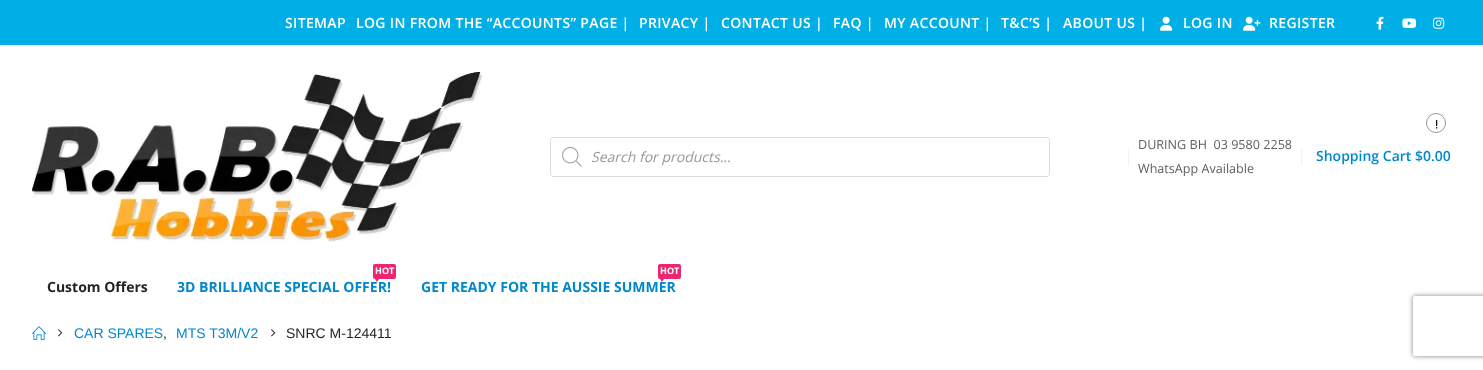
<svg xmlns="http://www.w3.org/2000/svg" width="1483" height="370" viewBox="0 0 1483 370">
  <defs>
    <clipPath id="clip1"><path d="M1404 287H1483V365H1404ZM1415 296H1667C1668 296 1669 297 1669 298V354C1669 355 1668 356 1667 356H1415C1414 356 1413 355 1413 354V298C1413 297 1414 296 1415 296Z" clip-rule="evenodd"/></clipPath>
  </defs>
  <rect width="100%" height="100%" fill="#fff"/>
  <path d="M0 0h1483v45H0z" fill="#00afe5"/>
  <image x="1160" y="16" width="13" height="15" href="img/1.png"/>
  <image x="1243" y="16" width="18" height="15" href="img/2.png"/>
  <image x="1376" y="16" width="8" height="14" href="img/3.png"/>
  <image x="1402" y="18" width="15" height="10" href="img/4.png"/>
  <image x="1433" y="17" width="12" height="12" href="img/5.png"/>
  <image x="32" y="72" width="450" height="170" href="img/6.png"/>
  <rect x="550.5" y="137.5" width="499" height="39" rx="2.5" fill="none" stroke="#ddd"/>
  <image x="562" y="147" width="20" height="20" href="img/7.png"/>
  <circle cx="1436" cy="123" r="9.5" fill="none" stroke="#999"/>
  <image x="1435" y="119" width="3" height="10" href="img/8.png"/>
  <path d="M1128 149h1v16H1128z" fill="#f2f2f2"/>
  <path d="M1301 149h1v16H1301z" fill="#f2f2f2"/>
  <rect x="373" y="264" width="23" height="15" rx="2" fill="#eb2771"/>
  <rect x="658" y="264" width="23" height="15" rx="2" fill="#eb2771"/>
  <image x="32" y="326" width="14" height="14" href="img/9.png"/>
  <image x="58" y="329" width="5" height="8" href="img/10.png"/>
  <image x="271" y="329" width="5" height="8" href="img/10.png"/>
  <g clip-path="url(#clip1)">
    <rect x="1413" y="296" width="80" height="60" rx="2" fill="#808080" filter="blur(2.5px)"/>
  </g>
  <g font-family="Open Sans" font-size="14" font-weight="600" letter-spacing="0.35" fill="#fff">
    <text x="285" y="28">SITEMAP</text>
    <text x="356" y="28">LOG IN FROM THE “ACCOUNTS” PAGE |</text>
    <text x="639" y="28">PRIVACY |</text>
    <text x="721" y="28">CONTACT US |</text>
    <text x="833" y="28">FAQ |</text>
    <text x="884" y="28">MY ACCOUNT |</text>
    <text x="1001" y="28">T&amp;C’S |</text>
    <text x="1063" y="28">ABOUT US |</text>
    <text x="1183" y="28">LOG IN</text>
    <text x="1269" y="28">REGISTER</text>
  </g>
  <text x="591" y="162" font-family="Open Sans" font-size="14" font-style="italic" fill="#999">Search for products...</text>
  <g font-family="Open Sans" font-size="12.6" fill="#606060">
    <text x="1138" y="149" xml:space="preserve">DURING BH  03 9580 2258</text>
    <text x="1138" y="173">WhatsApp Available</text>
  </g>
  <text x="1316" y="161" font-family="Open Sans" font-size="14" font-weight="600" fill="#08c">Shopping Cart $0.00</text>
  <text x="47" y="292" font-family="Open Sans" font-size="14" font-weight="bold" fill="#212529">Custom Offers</text>
  <text x="375" y="274" font-family="Open Sans" font-size="9" font-weight="bold" fill="#fff">HOT</text>
  <text x="177" y="292" font-family="Open Sans" font-size="14" font-weight="bold" fill="#08c">3D BRILLIANCE SPECIAL OFFER!</text>
  <path d="M375 279H379L377 282Z" fill="#eb2771"/>
  <text x="660" y="274" font-family="Open Sans" font-size="9" font-weight="bold" fill="#fff">HOT</text>
  <text x="421" y="292" font-family="Open Sans" font-size="14" font-weight="bold" fill="#08c">GET READY FOR THE AUSSIE SUMMER</text>
  <path d="M660 279H664L662 282Z" fill="#eb2771"/>
  <g font-family="Liberation Sans" font-size="14" fill="#08c">
    <text x="74" y="338">CAR SPARES</text>
    <text x="176" y="338">MTS T3M/V2</text>
  </g>
  <g font-family="Liberation Sans" font-size="14" fill="#212529">
    <text x="163" y="338">,</text>
    <text x="286" y="338">SNRC M-124411</text>
  </g>
</svg>
